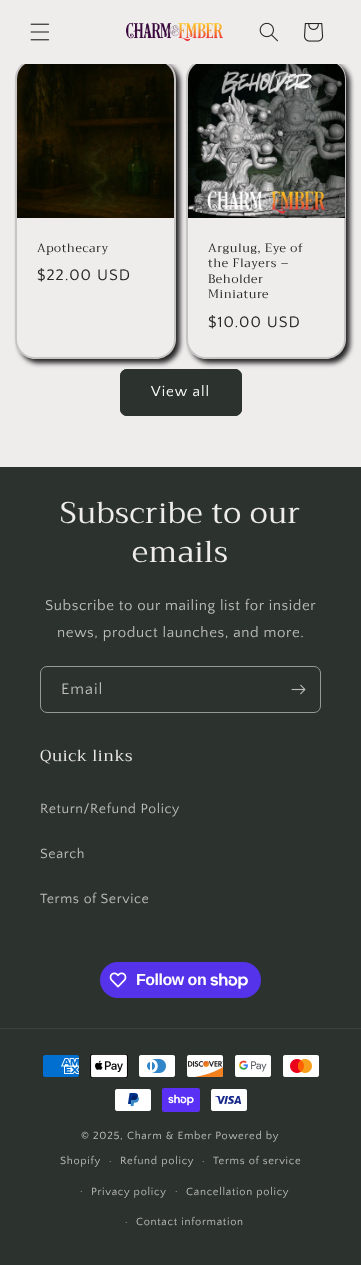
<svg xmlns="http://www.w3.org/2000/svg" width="361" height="1265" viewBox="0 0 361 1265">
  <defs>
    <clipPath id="clip1"><path d="M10 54H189V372H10ZM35 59H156C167 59 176 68 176 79V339C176 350 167 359 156 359H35C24 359 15 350 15 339V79C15 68 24 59 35 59Z" clip-rule="evenodd"/></clipPath>
    <clipPath id="clip2"><path d="M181 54H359V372H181ZM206 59H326C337 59 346 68 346 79V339C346 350 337 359 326 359H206C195 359 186 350 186 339V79C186 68 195 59 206 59Z" clip-rule="evenodd"/></clipPath>
  </defs>
  <rect width="100%" height="100%" fill="#efecec"/>
  <rect x="16" y="60" width="159" height="298" rx="19" fill="none" stroke="#c7c4c4" stroke-width="2"/>
  <g clip-path="url(#clip1)">
    <rect x="19" y="63" width="161" height="300" rx="20" fill="#252525" filter="blur(2.5px)"/>
  </g>
  <rect x="187" y="60" width="158" height="298" rx="19" fill="none" stroke="#c6c4c4" stroke-width="2"/>
  <g clip-path="url(#clip2)">
    <rect x="190" y="63" width="160" height="300" rx="20" fill="#252525" filter="blur(2.5px)"/>
  </g>
  <path d="M22 57h324v7H22z" fill="#efecec"/>
  <image x="30" y="23" width="20" height="18" href="img/1.png"/>
  <image x="126" y="22" width="98" height="20" href="img/2.png"/>
  <image x="259" y="22" width="19" height="20" href="img/3.png"/>
  <image x="304" y="23" width="20" height="19" href="img/4.png"/>
  <image x="17" y="64" width="157" height="154" href="img/5.png"/>
  <image x="188" y="64" width="157" height="154" href="img/6.png"/>
  <rect x="120" y="369" width="122" height="47" rx="7" fill="#2c332f"/>
  <rect x="120.5" y="369.5" width="121" height="46" rx="6.5" fill="none" stroke="#2c332f"/>
  <path d="M0 467h361v798H0z" fill="#2c332f"/>
  <rect x="40.5" y="666.5" width="280" height="46" rx="6.5" fill="none" stroke="#979997"/>
  <image x="291" y="684" width="15" height="11" href="img/7.png"/>
  <rect x="100" y="962" width="161" height="36" rx="18" fill="#5433eb"/>
  <image x="109" y="972" width="18" height="16" href="img/8.png"/>
  <image x="210" y="973" width="38" height="16" href="img/9.png"/>
  <path d="M0 1028h361v1H0z" fill="#3c423e"/>
  <image x="43" y="1055" width="36" height="22" href="img/10.png"/>
  <image x="90" y="1054" width="38" height="24" href="img/11.png"/>
  <image x="139" y="1055" width="36" height="22" href="img/12.png"/>
  <image x="187" y="1055" width="36" height="22" href="img/13.png"/>
  <image x="235" y="1055" width="36" height="22" href="img/14.png"/>
  <image x="283" y="1055" width="36" height="22" href="img/15.png"/>
  <image x="115" y="1089" width="36" height="22" href="img/16.png"/>
  <image x="162" y="1088" width="38" height="24" href="img/17.png"/>
  <image x="211" y="1089" width="36" height="22" href="img/18.png"/>
  <text x="37" y="252" font-family="Trirong" font-size="12" letter-spacing="0.6" fill="#252525">Apothecary</text>
  <text x="37" y="280" font-family="Quattrocento Sans" font-size="16" letter-spacing="1" fill="#252525">$22.00 USD</text>
  <g font-family="Trirong" font-size="12" letter-spacing="0.6" fill="#252525">
    <text x="208" y="252">Argulug, Eye of</text>
    <text x="208" y="267">the Flayers –</text>
    <text x="208" y="283">Beholder</text>
    <text x="208" y="298">Miniature</text>
  </g>
  <text x="208" y="327" font-family="Quattrocento Sans" font-size="16" letter-spacing="1" fill="#252525">$10.00 USD</text>
  <text x="151" y="396" font-family="Quattrocento Sans" font-size="15" letter-spacing="1" fill="#fff">View all</text>
  <g font-family="Trirong" font-size="30" letter-spacing="0.6" fill="#efecec">
    <text x="60" y="523">Subscribe to our</text>
    <text x="132" y="562">emails</text>
  </g>
  <g font-family="Quattrocento Sans" font-size="15" letter-spacing="0.6" fill="#bebebd">
    <text x="45" y="610">Subscribe to our mailing list for insider</text>
    <text x="57" y="637">news, product launches, and more.</text>
  </g>
  <text x="61" y="694" font-family="Quattrocento Sans" font-size="16" letter-spacing="1" fill="#bebebd">Email</text>
  <text x="40" y="761" font-family="Trirong" font-size="16" letter-spacing="0.6" fill="#efecec">Quick links</text>
  <g font-family="Quattrocento Sans" font-size="14" letter-spacing="0.6" fill="#bebebd">
    <text x="40" y="813">Return/Refund Policy</text>
    <text x="40" y="858">Search</text>
    <text x="40" y="903">Terms of Service</text>
  </g>
  <text x="136" y="985" font-family="Liberation Sans" font-size="16" font-weight="bold" letter-spacing="-0.5" fill="#fff">Follow on</text>
  <g font-family="Quattrocento Sans" font-size="11" letter-spacing="0.7" fill="#bebebd">
    <text x="81" y="1139">© 2025, Charm &amp; Ember Powered by</text>
    <text x="60" y="1164">Shopify</text>
  </g>
  <text x="109" y="1164" font-family="Quattrocento Sans" font-size="10" letter-spacing="0.7" fill="#bebebd">·</text>
  <text x="120" y="1164" font-family="Quattrocento Sans" font-size="11" letter-spacing="0.7" fill="#bebebd">Refund policy</text>
  <text x="202" y="1164" font-family="Quattrocento Sans" font-size="10" letter-spacing="0.7" fill="#bebebd">·</text>
  <text x="213" y="1164" font-family="Quattrocento Sans" font-size="11" letter-spacing="0.7" fill="#bebebd">Terms of service</text>
  <text x="80" y="1194" font-family="Quattrocento Sans" font-size="10" letter-spacing="0.7" fill="#bebebd">·</text>
  <text x="91" y="1195" font-family="Quattrocento Sans" font-size="11" letter-spacing="0.7" fill="#bebebd">Privacy policy</text>
  <text x="175" y="1194" font-family="Quattrocento Sans" font-size="10" letter-spacing="0.7" fill="#bebebd">·</text>
  <text x="186" y="1195" font-family="Quattrocento Sans" font-size="11" letter-spacing="0.7" fill="#bebebd">Cancellation policy</text>
  <text x="125" y="1225" font-family="Quattrocento Sans" font-size="10" letter-spacing="0.7" fill="#bebebd">·</text>
  <text x="136" y="1225" font-family="Quattrocento Sans" font-size="11" letter-spacing="0.7" fill="#bebebd">Contact information</text>
</svg>
